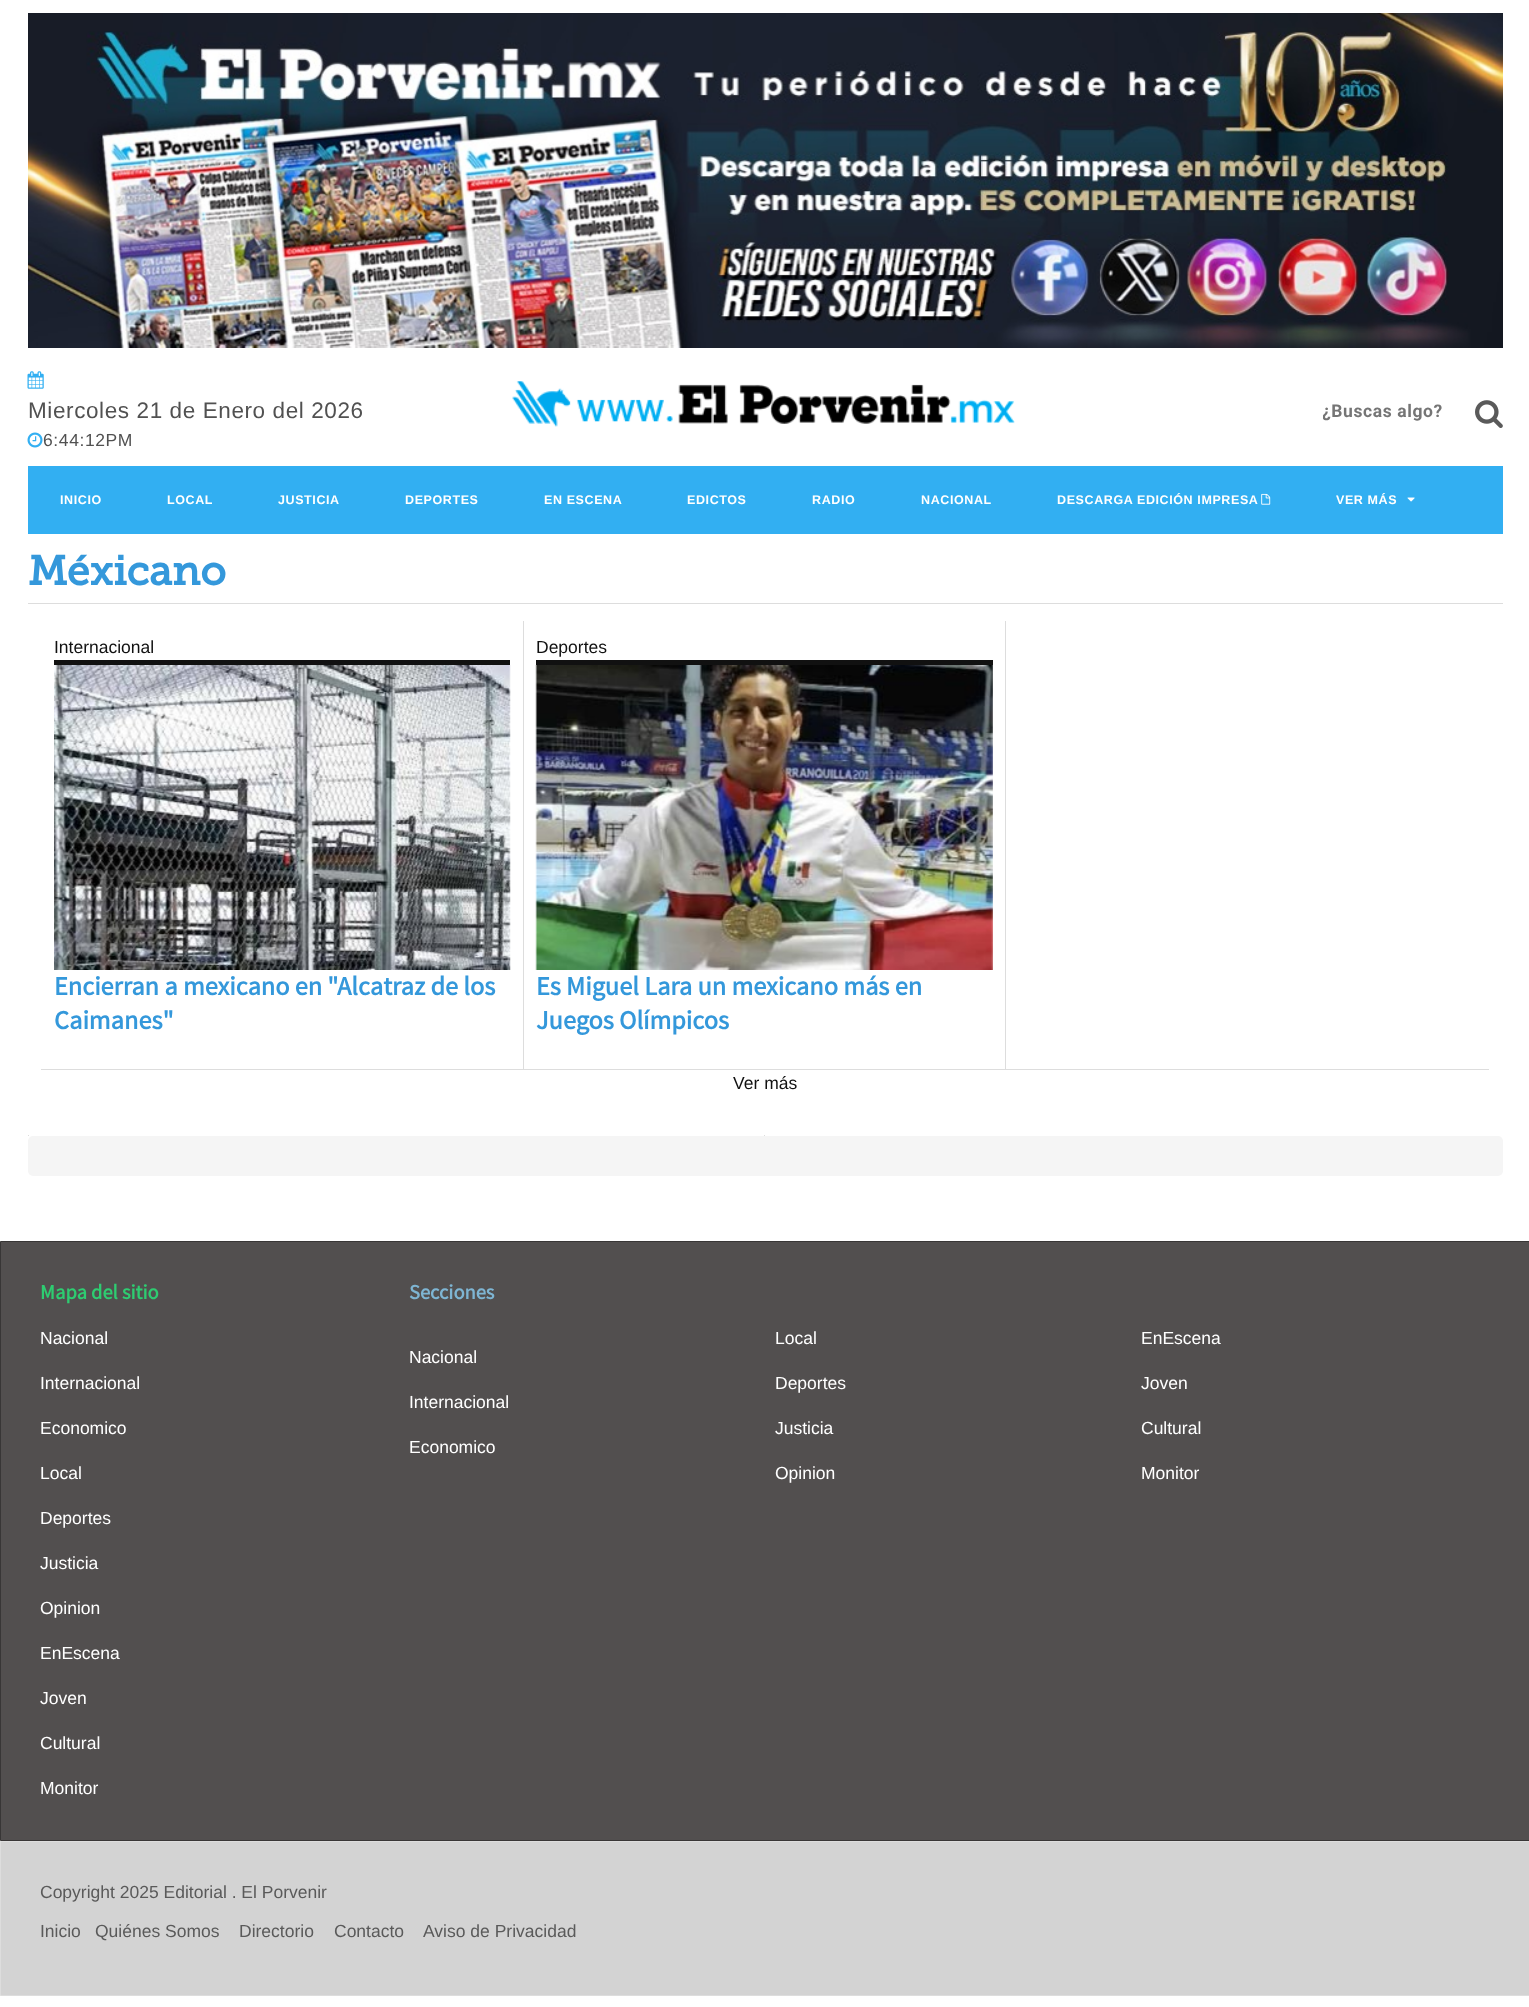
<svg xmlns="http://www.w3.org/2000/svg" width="1529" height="2007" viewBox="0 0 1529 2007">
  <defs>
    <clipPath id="clip1"><path d="M1323 401h142v20H1323z"/></clipPath>
  </defs>
  <rect width="100%" height="100%" fill="#fff"/>
  <image x="28" y="13" width="1475" height="335" href="img/1.png"/>
  <image x="27" y="371" width="17" height="18" href="img/2.png"/>
  <image x="27" y="432" width="16" height="16" href="img/3.png"/>
  <image x="512" y="381" width="503" height="46" href="img/4.png"/>
  <image x="1475" y="400" width="28" height="28" href="img/5.png"/>
  <path d="M28 466h1475v68H28z" fill="#32aff2"/>
  <image x="1261" y="493" width="10" height="12" href="img/6.png"/>
  <image x="1407" y="497" width="8" height="5" href="img/7.png"/>
  <path d="M28 603h1475v1H28z" fill="#ddd"/>
  <path d="M41 1069h1448v1H41z" fill="#ddd"/>
  <path d="M523 621h1v448H523z" fill="#ddd"/>
  <path d="M54 660h456v5H54z" fill="#111"/>
  <image x="54" y="665" width="457" height="305" href="img/8.png"/>
  <path d="M1005 621h1v448H1005z" fill="#ddd"/>
  <path d="M536 660h457v5H536z" fill="#111"/>
  <image x="535" y="665" width="458" height="305" href="img/9.png"/>
  <path d="M764 1135h1v1H764z" fill="#ddd"/>
  <path d="M28 1135h1v1H28z" fill="#ddd"/>
  <rect x="28" y="1136" width="1475" height="40" rx="5" fill="#f5f5f5"/>
  <path d="M0.5 1241.5h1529v599H0.5z" fill="#524f4f" stroke="#383636"/>
  <path d="M0.5 1841.5h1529v154H0.5z" fill="#d3d3d3" stroke="#ddd"/>
  <text x="28" y="418" font-family="Liberation Sans" font-size="22.5" letter-spacing="0.6" fill="#515151">Miercoles 21 de Enero del 2026</text>
  <text x="43" y="446" font-family="Liberation Sans" font-size="17.5" letter-spacing="0.6" fill="#515151">6:44:12PM</text>
  <g clip-path="url(#clip1)">
    <text x="1322" y="417" font-family="Roboto" font-size="17.5" font-weight="bold" letter-spacing="0.6" fill="#757575">¿Buscas algo?</text>
  </g>
  <g font-family="Liberation Sans" font-size="12.5" font-weight="bold" letter-spacing="0.6" fill="#fff">
    <text x="60" y="504">INICIO</text>
    <text x="167" y="504">LOCAL</text>
    <text x="278" y="504">JUSTICIA</text>
    <text x="405" y="504">DEPORTES</text>
    <text x="544" y="504">EN ESCENA</text>
    <text x="687" y="504">EDICTOS</text>
    <text x="812" y="504">RADIO</text>
    <text x="921" y="504">NACIONAL</text>
    <text x="1057" y="504">DESCARGA EDICIÓN IMPRESA</text>
    <text x="1336" y="504">VER MÁS</text>
  </g>
  <text x="28" y="585" font-family="Museo Slab" font-size="41" font-weight="bold" fill="#3498db">Méxicano</text>
  <text x="54" y="653" font-family="Liberation Sans" font-size="17.5" fill="#111">Internacional</text>
  <g font-family="Source Sans Pro" font-size="26.25" font-weight="bold" fill="#3498db">
    <text x="54" y="995">Encierran a mexicano en "Alcatraz de los</text>
    <text x="54" y="1029">Caimanes"</text>
  </g>
  <text x="536" y="653" font-family="Liberation Sans" font-size="17.5" fill="#111">Deportes</text>
  <g font-family="Source Sans Pro" font-size="26.25" font-weight="bold" fill="#3498db">
    <text x="536" y="995">Es Miguel Lara un mexicano más en</text>
    <text x="536" y="1029">Juegos Olímpicos</text>
  </g>
  <text x="733" y="1089" font-family="Liberation Sans" font-size="17.5" fill="#111">Ver más</text>
  <text x="40" y="1299" font-family="Source Sans Pro" font-size="20.5" font-weight="bold" fill="#2ecc71">Mapa del sitio</text>
  <g font-family="Liberation Sans" font-size="17.5" fill="#fff">
    <text x="40" y="1344">Nacional</text>
    <text x="40" y="1389">Internacional</text>
    <text x="40" y="1434">Economico</text>
    <text x="40" y="1479">Local</text>
    <text x="40" y="1524">Deportes</text>
    <text x="40" y="1569">Justicia</text>
    <text x="40" y="1614">Opinion</text>
    <text x="40" y="1659">EnEscena</text>
    <text x="40" y="1704">Joven</text>
    <text x="40" y="1749">Cultural</text>
    <text x="40" y="1794">Monitor</text>
  </g>
  <text x="409" y="1299" font-family="Source Sans Pro" font-size="20.5" font-weight="bold" fill="#7eb5d3">Secciones</text>
  <g font-family="Liberation Sans" font-size="17.5" fill="#fff">
    <text x="775" y="1344">Local</text>
    <text x="1141" y="1344">EnEscena</text>
    <text x="409" y="1363">Nacional</text>
    <text x="775" y="1389">Deportes</text>
    <text x="1141" y="1389">Joven</text>
    <text x="409" y="1408">Internacional</text>
    <text x="775" y="1434">Justicia</text>
    <text x="1141" y="1434">Cultural</text>
    <text x="409" y="1453">Economico</text>
    <text x="775" y="1479">Opinion</text>
    <text x="1141" y="1479">Monitor</text>
  </g>
  <g font-family="Liberation Sans" font-size="17.5" fill="#5a5a5a">
    <text x="40" y="1898">Copyright 2025 Editorial . El Porvenir</text>
    <text x="40" y="1937">Inicio</text>
    <text x="95" y="1937">Quiénes Somos</text>
    <text x="239" y="1937">Directorio</text>
    <text x="334" y="1937">Contacto</text>
    <text x="423" y="1937">Aviso de Privacidad</text>
  </g>
</svg>
